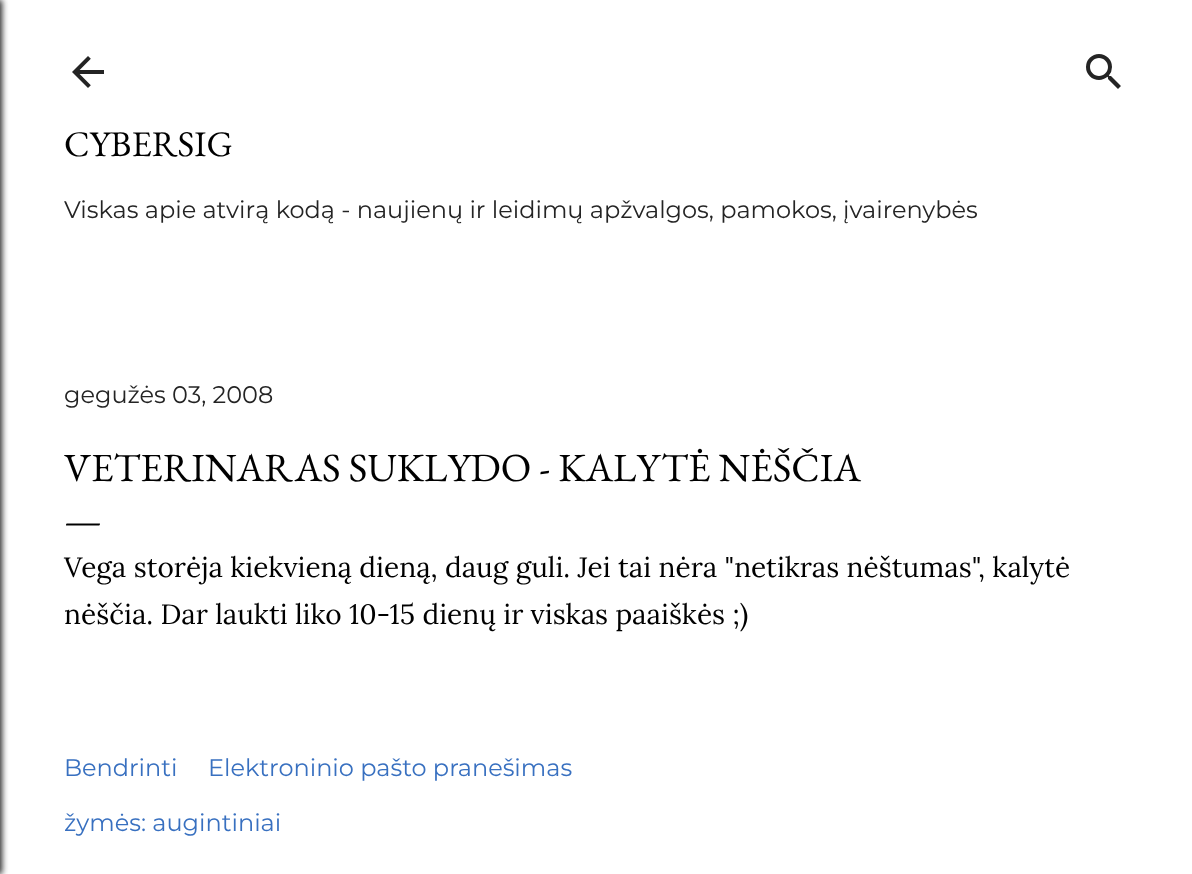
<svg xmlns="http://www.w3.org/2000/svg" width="1192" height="874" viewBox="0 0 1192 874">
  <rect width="100%" height="100%" fill="#fff"/>
  <path d="M-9 0h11v874H-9z" fill="#242424" filter="blur(3px)"/>
  <image x="72" y="56" width="32" height="32" href="img/1.png"/>
  <image x="1086" y="54" width="35" height="35" href="img/2.png"/>
  <text x="64" y="156" font-family="EB Garamond" font-size="36" fill="#000">CYBERSIG</text>
  <g font-family="Montserrat" font-size="24" fill="#242424">
    <text x="64" y="218">Viskas apie atvirą kodą - naujienų ir leidimų apžvalgos, pamokos, įvairenybės</text>
    <text x="64" y="403">gegužės 03, 2008</text>
  </g>
  <g font-family="EB Garamond" font-size="40" fill="#000">
    <text x="64" y="481">VETERINARAS SUKLYDO - KALYTĖ NĖŠČIA</text>
    <text x="64" y="533">—</text>
  </g>
  <g font-family="Lora" font-size="28" fill="#000">
    <text x="64" y="577">Vega storėja kiekvieną dieną, daug guli. Jei tai nėra "netikras nėštumas", kalytė</text>
    <text x="64" y="624">nėščia. Dar laukti liko 10-15 dienų ir viskas paaiškės ;)</text>
  </g>
  <g font-family="Montserrat" font-size="24" fill="#3870c0">
    <text x="64" y="776">Bendrinti</text>
    <text x="208" y="776">Elektroninio pašto pranešimas</text>
    <text x="64" y="831">žymės: augintiniai</text>
  </g>
</svg>
